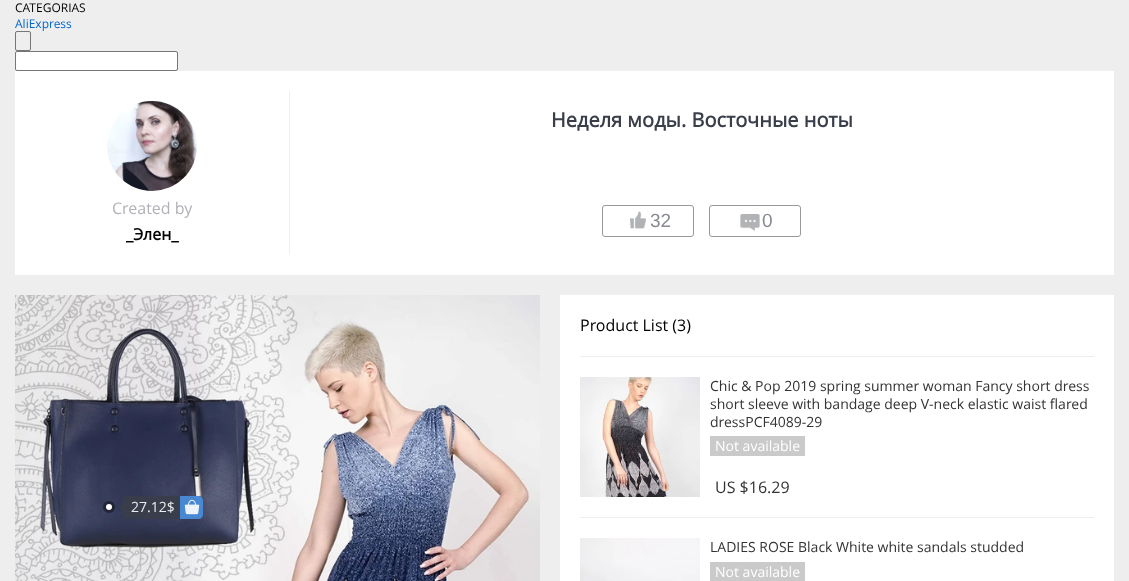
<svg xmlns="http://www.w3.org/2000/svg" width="1129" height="581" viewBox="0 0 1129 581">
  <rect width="100%" height="100%" fill="#eee"/>
  <rect x="15.5" y="31.5" width="15" height="19" rx="1.5" fill="none" stroke="#767676"/>
  <rect x="15.5" y="51.5" width="162" height="19" rx="1.5" fill="#fff" stroke="#767676"/>
  <path d="M15 71h1099v204H15z" fill="#fff"/>
  <path d="M289 91h1v164H289z" fill="#eee"/>
  <image x="107" y="101" width="90" height="90" href="img/1.png"/>
  <rect x="602.5" y="205.5" width="91" height="31" rx="2.5" fill="none" stroke="#999"/>
  <image x="630" y="211" width="16" height="18" href="img/2.png"/>
  <rect x="709.5" y="205.5" width="91" height="31" rx="2.5" fill="none" stroke="#999"/>
  <image x="740" y="214" width="20" height="17" href="img/3.png"/>
  <image x="15" y="295" width="525" height="286" href="img/4.png"/>
  <circle cx="109" cy="507" r="6" fill="#00000066"/>
  <circle cx="109" cy="507" r="3" fill="#fff"/>
  <rect x="123" y="496" width="80" height="23" rx="4" fill="#3a3e4ae6"/>
  <path d="M126 501V513L118 507Z" fill="#3a3e4ae6"/>
  <path d="M180 496H199C201 496 203 498 203 500V515C203 517 201 519 199 519H180Z" fill="#4a90e2e6"/>
  <image x="184" y="499" width="16" height="16" href="img/5.png"/>
  <path d="M560 295h554v286H560z" fill="#fff"/>
  <path d="M580 356h514v1H580z" fill="#eee"/>
  <image x="580" y="377" width="120" height="120" href="img/6.png"/>
  <path d="M710 436h95v20H710z" fill="#cacaca"/>
  <path d="M580 517h514v1H580z" fill="#eee"/>
  <image x="580" y="538" width="120" height="43" href="img/7.png"/>
  <path d="M710 562h95v19H710z" fill="#cacaca"/>
  <text x="15" y="12" font-family="Open Sans" font-size="12" fill="#000">CATEGORIAS</text>
  <text x="15" y="28" font-family="Open Sans" font-size="12" fill="#06c">AliExpress</text>
  <text x="112" y="214" font-family="Open Sans" font-size="16" fill="#b0b2b7">Created by</text>
  <text x="126" y="240" font-family="Open Sans" font-size="16" font-weight="bold" fill="#000">_Элен_</text>
  <text x="551" y="127" font-family="Open Sans" font-size="20" font-weight="bold" fill="#3a3e4a">Неделя моды. Восточные ноты</text>
  <g font-family="Liberation Sans" font-size="19" fill="#898b92">
    <text x="650" y="227">32</text>
    <text x="762" y="227">0</text>
  </g>
  <text x="131" y="512" font-family="Open Sans" font-size="14" fill="#ebeced">27.12$</text>
  <text x="580" y="331" font-family="Open Sans" font-size="16" fill="#000">Product List (3)</text>
  <g font-family="Open Sans" font-size="14" fill="#333">
    <text x="710" y="391">Chic &amp; Pop 2019 spring summer woman Fancy short dress</text>
    <text x="710" y="409">short sleeve with bandage deep V-neck elastic waist flared</text>
    <text x="710" y="427">dressPCF4089-29</text>
  </g>
  <text x="715" y="451" font-family="Open Sans" font-size="14" fill="#fff">Not available</text>
  <text x="715" y="493" font-family="Open Sans" font-size="16" fill="#333">US $16.29</text>
  <text x="710" y="552" font-family="Open Sans" font-size="14" fill="#333">LADIES ROSE Black White white sandals studded</text>
  <text x="715" y="577" font-family="Open Sans" font-size="14" fill="#fff">Not available</text>
</svg>
